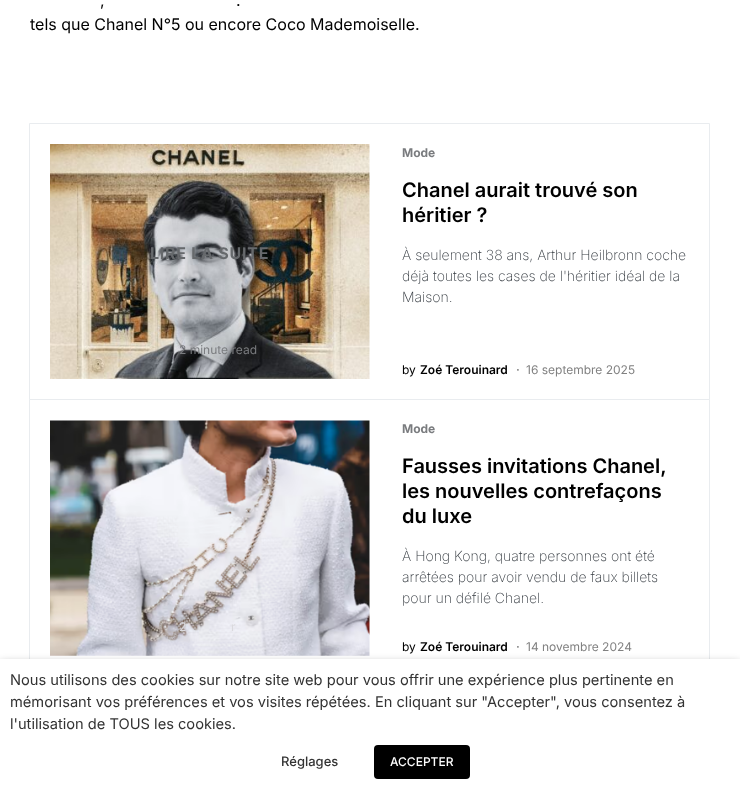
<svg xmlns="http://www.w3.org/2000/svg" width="740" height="799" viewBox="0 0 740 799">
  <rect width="100%" height="100%" fill="#fff"/>
  <path d="M29.5 123.5h680v276H29.5z" fill="none" stroke="#e9ecef"/>
  <image x="50" y="144" width="320" height="235" href="img/1.png"/>
  <path d="M29.5 399.5h680v277H29.5z" fill="none" stroke="#e9ecef"/>
  <image x="50" y="420" width="320" height="236" href="img/2.png"/>
  <path d="M0 664h740v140H0z" fill="#00000080" filter="blur(5px)"/>
  <path d="M0 659h740v140H0z" fill="#fff"/>
  <rect x="374" y="745" width="96" height="34" rx="4" fill="#000"/>
  <g font-family="Inter" font-size="16" fill="#000">
    <text x="100" y="6">,</text>
    <text x="236" y="6">.</text>
    <text x="30" y="30">tels que Chanel N°5 ou encore Coco Mademoiselle.</text>
  </g>
  <text x="150" y="259" font-family="Inter" font-size="16" font-weight="bold" letter-spacing="0.75" fill="#66696c">LIRE LA SUITE</text>
  <text x="179" y="354" font-family="Inter" font-size="12" fill="#7a7c7f">2 minute read</text>
  <text x="402" y="157" font-family="Inter" font-size="12" font-weight="bold" fill="#7a7c7f">Mode</text>
  <g font-family="Inter" font-size="20" font-weight="600" fill="#000">
    <text x="402" y="197">Chanel aurait trouvé son</text>
    <text x="402" y="222">héritier ?</text>
  </g>
  <g font-family="Inter" font-size="14" font-weight="200" fill="#343a40">
    <text x="402" y="260">À seulement 38 ans, Arthur Heilbronn coche</text>
    <text x="402" y="281">déjà toutes les cases de l'héritier idéal de la</text>
    <text x="402" y="302">Maison.</text>
  </g>
  <text x="402" y="374" font-family="Inter" font-size="12" fill="#000">by</text>
  <text x="420" y="374" font-family="Inter" font-size="12" font-weight="600" fill="#000">Zoé Terouinard</text>
  <text x="516" y="374" font-family="Inter" font-size="12" font-weight="600" fill="#818181">·</text>
  <text x="526" y="374" font-family="Inter" font-size="12" fill="#818181">16 septembre 2025</text>
  <g font-family="Inter" font-size="12" fill="#dad9dd">
    <text x="179" y="631">2</text>
    <text x="231" y="631">r</text>
  </g>
  <text x="402" y="433" font-family="Inter" font-size="12" font-weight="bold" fill="#7a7c7f">Mode</text>
  <g font-family="Inter" font-size="20" font-weight="600" fill="#000">
    <text x="402" y="473">Fausses invitations Chanel,</text>
    <text x="402" y="498">les nouvelles contrefaçons</text>
    <text x="402" y="523">du luxe</text>
  </g>
  <g font-family="Inter" font-size="14" font-weight="200" fill="#343a40">
    <text x="402" y="561">À Hong Kong, quatre personnes ont été</text>
    <text x="402" y="582">arrêtées pour avoir vendu de faux billets</text>
    <text x="402" y="603">pour un défilé Chanel.</text>
  </g>
  <text x="402" y="651" font-family="Inter" font-size="12" fill="#000">by</text>
  <text x="420" y="651" font-family="Inter" font-size="12" font-weight="600" fill="#000">Zoé Terouinard</text>
  <text x="516" y="651" font-family="Inter" font-size="12" font-weight="600" fill="#818181">·</text>
  <text x="526" y="651" font-family="Inter" font-size="12" fill="#818181">14 novembre 2024</text>
  <g font-family="Inter" font-size="14.65" fill="#333">
    <text x="10" y="685">Nous utilisons des cookies sur notre site web pour vous offrir une expérience plus pertinente en</text>
    <text x="10" y="707">mémorisant vos préférences et vos visites répétées. En cliquant sur "Accepter", vous consentez à</text>
    <text x="10" y="729">l'utilisation de TOUS les cookies.</text>
  </g>
  <text x="281" y="766" font-family="Inter" font-size="13" font-weight="500" fill="#333">Réglages</text>
  <text x="390" y="766" font-family="Inter" font-size="12" font-weight="500" fill="#fff">ACCEPTER</text>
</svg>
